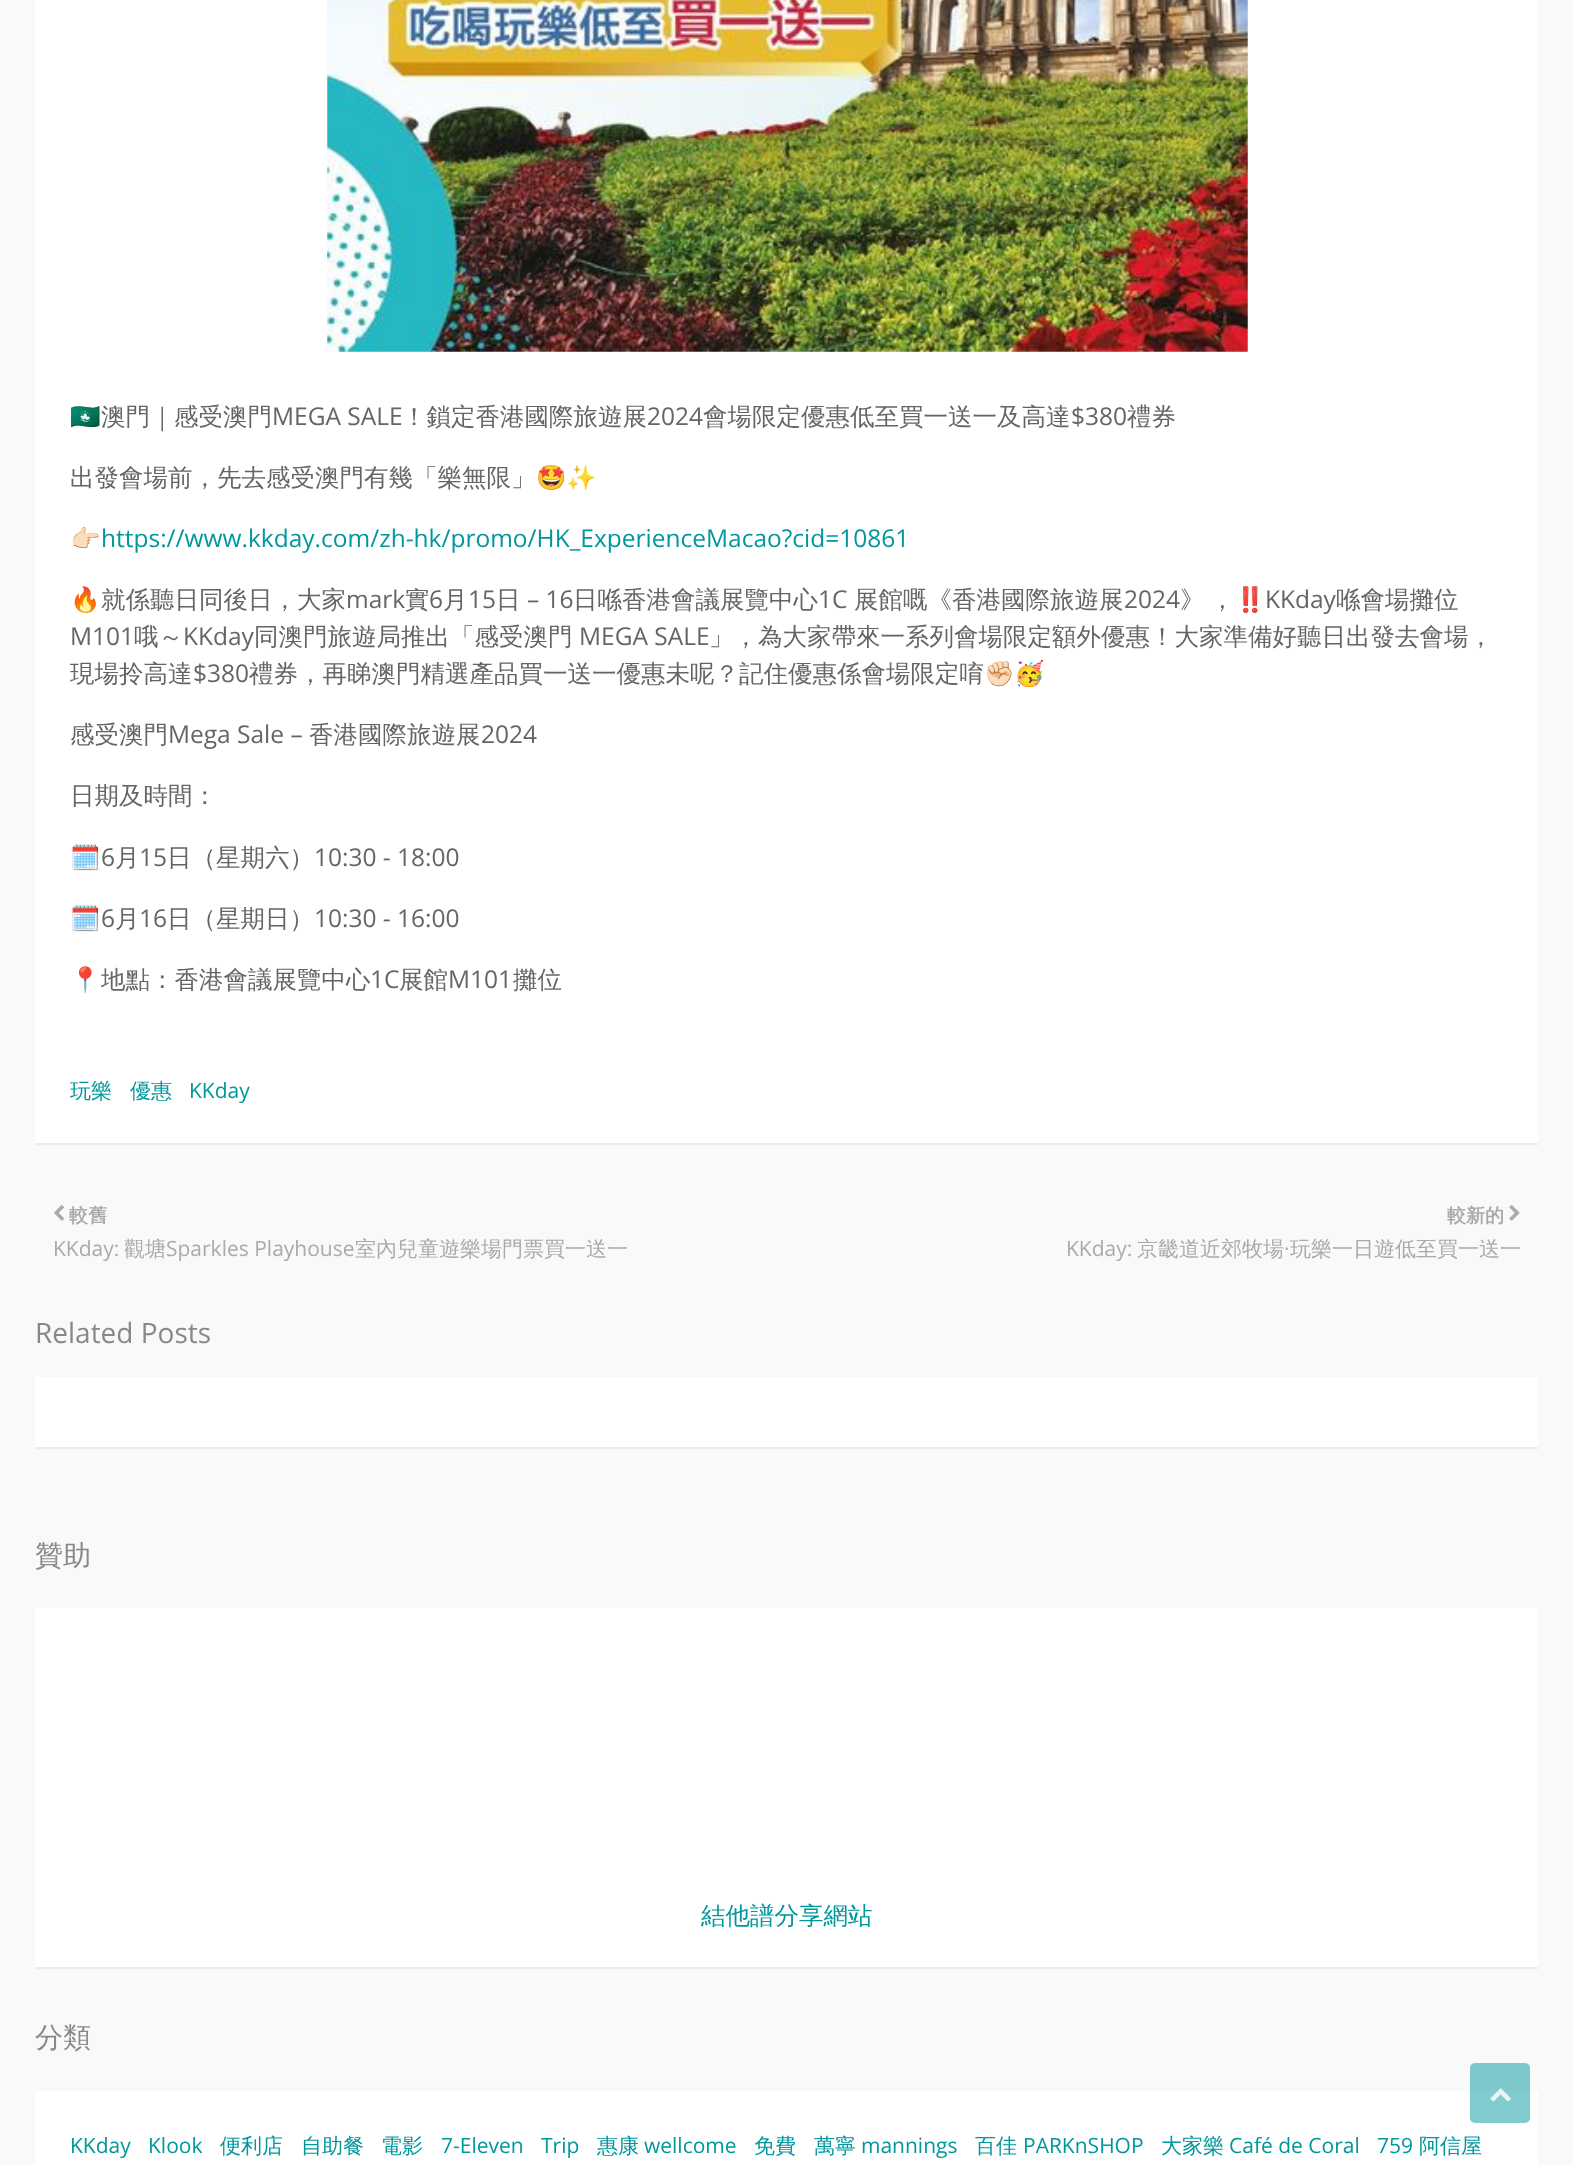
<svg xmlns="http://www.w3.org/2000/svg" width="1573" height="2165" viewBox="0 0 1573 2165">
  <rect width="100%" height="100%" fill="#f8f9f9"/>
  <path d="M35 0h1503v1143H35z" fill="#fff"/>
  <path d="M35 1143h1503v2H35z" fill="#ebebeb"/>
  <image x="327" y="0" width="921" height="352" href="img/1.png"/>
  <image x="54" y="1205" width="10" height="16" href="img/2.png"/>
  <image x="1509" y="1205" width="11" height="16" href="img/3.png"/>
  <path d="M35 1377h1503v70H35z" fill="#fff"/>
  <path d="M35 1447h1503v2H35z" fill="#ebebeb"/>
  <path d="M35 1608h1503v359H35z" fill="#fff"/>
  <path d="M35 1967h1503v2H35z" fill="#ebebeb"/>
  <path d="M35 2091h1503v74H35z" fill="#fff"/>
  <rect x="1470" y="2063" width="60" height="60" rx="5" fill="#00979d80"/>
  <image x="1490" y="2088" width="21" height="14" href="img/4.png"/>
  <text x="70" y="425" font-family="Noto Color Emoji" font-size="24.5" fill="#656565">🇲🇴</text>
  <text x="101" y="425" font-family="WenQuanYi Zen Hei" font-size="24.5" font-weight="500" fill="#656565">澳門｜感受澳門</text>
  <text x="272" y="425" font-family="Open Sans" font-size="24.5" fill="#656565">MEGA SALE</text>
  <text x="402" y="425" font-family="WenQuanYi Zen Hei" font-size="24.5" font-weight="500" fill="#656565">！鎖定香港國際旅遊展</text>
  <text x="647" y="425" font-family="Open Sans" font-size="24.5" fill="#656565">2024</text>
  <text x="703" y="425" font-family="WenQuanYi Zen Hei" font-size="24.5" font-weight="500" fill="#656565">會場限定優惠低至買一送一及高達</text>
  <text x="1071" y="425" font-family="Open Sans" font-size="24.5" fill="#656565">$380</text>
  <g font-family="WenQuanYi Zen Hei" font-size="24.5" font-weight="500" fill="#656565">
    <text x="1127" y="425">禮券</text>
    <text x="70" y="486">出發會場前，先去感受澳門有幾「樂無限」</text>
  </g>
  <g font-family="Noto Color Emoji" font-size="24.5" fill="#656565">
    <text x="536" y="486">🤩✨</text>
    <text x="70" y="547">👉🏻</text>
  </g>
  <text x="101" y="547" font-family="Open Sans" font-size="24.5" fill="#00979d">https://www.kkday.com/zh-hk/promo/HK_ExperienceMacao?cid=10861</text>
  <text x="70" y="608" font-family="Noto Color Emoji" font-size="24.5" fill="#656565">🔥</text>
  <text x="101" y="608" font-family="WenQuanYi Zen Hei" font-size="24.5" font-weight="500" fill="#656565">就係聽日同後日，大家</text>
  <text x="346" y="608" font-family="Open Sans" font-size="24.5" fill="#656565">mark</text>
  <text x="405" y="608" font-family="WenQuanYi Zen Hei" font-size="24.5" font-weight="500" fill="#656565">實</text>
  <text x="429" y="608" font-family="Open Sans" font-size="24.5" fill="#656565">6</text>
  <text x="443" y="608" font-family="WenQuanYi Zen Hei" font-size="24.5" font-weight="500" fill="#656565">月</text>
  <text x="468" y="608" font-family="Open Sans" font-size="24.5" fill="#656565">15</text>
  <text x="496" y="608" font-family="WenQuanYi Zen Hei" font-size="24.5" font-weight="500" fill="#656565">日</text>
  <text x="527" y="608" font-family="Open Sans" font-size="24.5" fill="#656565">– 16</text>
  <text x="573" y="608" font-family="WenQuanYi Zen Hei" font-size="24.5" font-weight="500" fill="#656565">日喺香港會議展覽中心</text>
  <text x="818" y="608" font-family="Open Sans" font-size="24.5" fill="#656565">1C</text>
  <text x="854" y="608" font-family="WenQuanYi Zen Hei" font-size="24.5" font-weight="500" fill="#656565">展館嘅《香港國際旅遊展</text>
  <text x="1124" y="608" font-family="Open Sans" font-size="24.5" fill="#656565">2024</text>
  <g font-family="WenQuanYi Zen Hei" font-size="24.5" font-weight="500" fill="#656565">
    <text x="1180" y="608">》</text>
    <text x="1210" y="608">，</text>
  </g>
  <text x="1235" y="608" font-family="Noto Color Emoji" font-size="24.5" fill="#656565">‼️</text>
  <text x="1265" y="608" font-family="Open Sans" font-size="24.5" fill="#656565">KKday</text>
  <text x="1336" y="608" font-family="WenQuanYi Zen Hei" font-size="24.5" font-weight="500" fill="#656565">喺會場攤位</text>
  <text x="70" y="645" font-family="Open Sans" font-size="24.5" fill="#656565">M101</text>
  <text x="134" y="645" font-family="WenQuanYi Zen Hei" font-size="24.5" font-weight="500" fill="#656565">哦～</text>
  <text x="183" y="645" font-family="Open Sans" font-size="24.5" fill="#656565">KKday</text>
  <text x="254" y="645" font-family="WenQuanYi Zen Hei" font-size="24.5" font-weight="500" fill="#656565">同澳門旅遊局推出「感受澳門</text>
  <text x="579" y="645" font-family="Open Sans" font-size="24.5" fill="#656565">MEGA SALE</text>
  <g font-family="WenQuanYi Zen Hei" font-size="24.5" font-weight="500" fill="#656565">
    <text x="709" y="645">」，為大家帶來一系列會場限定額外優惠！大家準備好聽日出發去會場，</text>
    <text x="70" y="682">現場拎高達</text>
  </g>
  <text x="193" y="682" font-family="Open Sans" font-size="24.5" fill="#656565">$380</text>
  <text x="249" y="682" font-family="WenQuanYi Zen Hei" font-size="24.5" font-weight="500" fill="#656565">禮券，再睇澳門精選產品買一送一優惠未呢？記住優惠係會場限定唷</text>
  <text x="984" y="682" font-family="Noto Color Emoji" font-size="24.5" fill="#656565">✊🏻🥳</text>
  <text x="70" y="743" font-family="WenQuanYi Zen Hei" font-size="24.5" font-weight="500" fill="#656565">感受澳門</text>
  <text x="168" y="743" font-family="Open Sans" font-size="24.5" fill="#656565">Mega Sale –</text>
  <text x="309" y="743" font-family="WenQuanYi Zen Hei" font-size="24.5" font-weight="500" fill="#656565">香港國際旅遊展</text>
  <text x="481" y="743" font-family="Open Sans" font-size="24.5" fill="#656565">2024</text>
  <text x="70" y="804" font-family="WenQuanYi Zen Hei" font-size="24.5" font-weight="500" fill="#656565">日期及時間：</text>
  <text x="70" y="866" font-family="Noto Color Emoji" font-size="24.5" fill="#656565">🗓️</text>
  <text x="101" y="866" font-family="Open Sans" font-size="24.5" fill="#656565">6</text>
  <text x="115" y="866" font-family="WenQuanYi Zen Hei" font-size="24.5" font-weight="500" fill="#656565">月</text>
  <text x="139" y="866" font-family="Open Sans" font-size="24.5" fill="#656565">15</text>
  <text x="167" y="866" font-family="WenQuanYi Zen Hei" font-size="24.5" font-weight="500" fill="#656565">日（星期六）</text>
  <text x="314" y="866" font-family="Open Sans" font-size="24.5" fill="#656565">10:30 - 18:00</text>
  <text x="70" y="927" font-family="Noto Color Emoji" font-size="24.5" fill="#656565">🗓️</text>
  <text x="101" y="927" font-family="Open Sans" font-size="24.5" fill="#656565">6</text>
  <text x="115" y="927" font-family="WenQuanYi Zen Hei" font-size="24.5" font-weight="500" fill="#656565">月</text>
  <text x="139" y="927" font-family="Open Sans" font-size="24.5" fill="#656565">16</text>
  <text x="167" y="927" font-family="WenQuanYi Zen Hei" font-size="24.5" font-weight="500" fill="#656565">日（星期日）</text>
  <text x="314" y="927" font-family="Open Sans" font-size="24.5" fill="#656565">10:30 - 16:00</text>
  <text x="70" y="988" font-family="Noto Color Emoji" font-size="24.5" fill="#656565">📍</text>
  <text x="101" y="988" font-family="WenQuanYi Zen Hei" font-size="24.5" font-weight="500" fill="#656565">地點：香港會議展覽中心</text>
  <text x="370" y="988" font-family="Open Sans" font-size="24.5" fill="#656565">1C</text>
  <text x="399" y="988" font-family="WenQuanYi Zen Hei" font-size="24.5" font-weight="500" fill="#656565">展館</text>
  <text x="448" y="988" font-family="Open Sans" font-size="24.5" fill="#656565">M101</text>
  <text x="513" y="988" font-family="WenQuanYi Zen Hei" font-size="24.5" font-weight="500" fill="#656565">攤位</text>
  <g font-family="WenQuanYi Zen Hei" font-size="21" font-weight="500" fill="#00979d">
    <text x="70" y="1098">玩樂</text>
    <text x="130" y="1098">優惠</text>
  </g>
  <text x="189" y="1098" font-family="Open Sans" font-size="21" fill="#00979d">KKday</text>
  <text x="69" y="1222" font-family="WenQuanYi Zen Hei" font-size="19" font-weight="bold" fill="#aaa">較舊</text>
  <text x="53" y="1256" font-family="Open Sans" font-size="21" fill="#aaa">KKday:</text>
  <text x="124" y="1256" font-family="WenQuanYi Zen Hei" font-size="21" font-weight="500" fill="#aaa">觀塘</text>
  <text x="166" y="1256" font-family="Open Sans" font-size="21" fill="#aaa">Sparkles Playhouse</text>
  <text x="355" y="1256" font-family="WenQuanYi Zen Hei" font-size="21" font-weight="500" fill="#aaa">室內兒童遊樂場門票買一送一</text>
  <text x="1447" y="1222" font-family="WenQuanYi Zen Hei" font-size="19" font-weight="bold" fill="#aaa">較新的</text>
  <text x="1066" y="1256" font-family="Open Sans" font-size="21" fill="#aaa">KKday:</text>
  <text x="1137" y="1256" font-family="WenQuanYi Zen Hei" font-size="21" font-weight="500" fill="#aaa">京畿道近郊牧場</text>
  <text x="1284" y="1256" font-family="Open Sans" font-size="21" fill="#aaa">·</text>
  <text x="1290" y="1256" font-family="WenQuanYi Zen Hei" font-size="21" font-weight="500" fill="#aaa">玩樂一日遊低至買一送一</text>
  <text x="35" y="1343" font-family="Open Sans" font-size="28" fill="#888">Related Posts</text>
  <text x="35" y="1565" font-family="WenQuanYi Zen Hei" font-size="28" font-weight="500" fill="#888">贊助</text>
  <text x="701" y="1924" font-family="WenQuanYi Zen Hei" font-size="24.5" font-weight="500" fill="#00979d">結他譜分享網站</text>
  <text x="35" y="2047" font-family="WenQuanYi Zen Hei" font-size="28" font-weight="500" fill="#888">分類</text>
  <g font-family="Open Sans" font-size="21" fill="#00979d">
    <text x="70" y="2153">KKday</text>
    <text x="148" y="2153">Klook</text>
  </g>
  <g font-family="WenQuanYi Zen Hei" font-size="21" font-weight="500" fill="#00979d">
    <text x="220" y="2153">便利店</text>
    <text x="301" y="2153">自助餐</text>
    <text x="381" y="2153">電影</text>
  </g>
  <g font-family="Open Sans" font-size="21" fill="#00979d">
    <text x="441" y="2153">7-Eleven</text>
    <text x="541" y="2153">Trip</text>
  </g>
  <text x="597" y="2153" font-family="WenQuanYi Zen Hei" font-size="21" font-weight="500" fill="#00979d">惠康</text>
  <text x="644" y="2153" font-family="Open Sans" font-size="21" fill="#00979d">wellcome</text>
  <g font-family="WenQuanYi Zen Hei" font-size="21" font-weight="500" fill="#00979d">
    <text x="754" y="2153">免費</text>
    <text x="814" y="2153">萬寧</text>
  </g>
  <text x="861" y="2153" font-family="Open Sans" font-size="21" fill="#00979d">mannings</text>
  <text x="975" y="2153" font-family="WenQuanYi Zen Hei" font-size="21" font-weight="500" fill="#00979d">百佳</text>
  <text x="1023" y="2153" font-family="Open Sans" font-size="21" fill="#00979d">PARKnSHOP</text>
  <text x="1161" y="2153" font-family="WenQuanYi Zen Hei" font-size="21" font-weight="500" fill="#00979d">大家樂</text>
  <g font-family="Open Sans" font-size="21" fill="#00979d">
    <text x="1229" y="2153">Café de Coral</text>
    <text x="1377" y="2153">759</text>
  </g>
  <text x="1419" y="2153" font-family="WenQuanYi Zen Hei" font-size="21" font-weight="500" fill="#00979d">阿信屋</text>
</svg>
